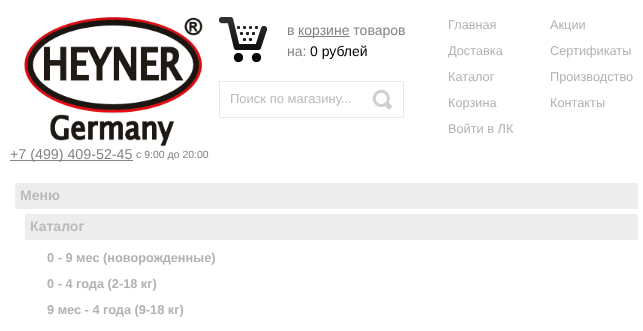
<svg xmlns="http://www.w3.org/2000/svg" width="643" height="331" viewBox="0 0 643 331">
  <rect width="100%" height="100%" fill="#fff"/>
  <image x="219" y="17" width="48" height="45" href="img/1.png"/>
  <path d="M298 36h52v1H298z" fill="#858484"/>
  <path d="M219.5 81.5h184v36H219.5z" fill="none" stroke="#e8e8e8"/>
  <image x="372" y="89" width="20" height="21" href="img/2.png"/>
  <image x="24" y="17" width="179" height="130" href="img/3.png"/>
  <path d="M10 160h123v1H10z" fill="#858484"/>
  <path d="M15 183h623v26H15z" fill="#ededed"/>
  <path d="M25 214h613v26H25z" fill="#ededed"/>
  <g font-family="Liberation Sans" font-size="14" fill="#858484">
    <text x="287" y="35">в</text>
    <text x="298" y="35">корзине товаров</text>
    <text x="287" y="56">на:</text>
  </g>
  <text x="310" y="56" font-family="Liberation Sans" font-size="14" fill="#000">0 рублей</text>
  <text x="230" y="103" font-family="Liberation Sans" font-size="13" fill="#bbb">Поиск по магазину...</text>
  <g font-family="Liberation Sans" font-size="12.75" fill="#b2b2b2">
    <text x="448" y="29">Главная</text>
    <text x="550" y="29">Акции</text>
    <text x="448" y="55">Доставка</text>
    <text x="550" y="55">Сертификаты</text>
    <text x="448" y="81">Каталог</text>
    <text x="550" y="81">Производство</text>
    <text x="448" y="107">Корзина</text>
    <text x="550" y="107">Контакты</text>
    <text x="448" y="133">Войти в ЛК</text>
  </g>
  <text x="10" y="159" font-family="Liberation Sans" font-size="14.25" fill="#858484">+7 (499) 409-52-45</text>
  <text x="136" y="158" font-family="Liberation Sans" font-size="10.5" fill="#858484">с 9:00 до 20:00</text>
  <g font-family="Liberation Sans" font-size="14" font-weight="bold" fill="#bbb">
    <text x="20" y="200">Меню</text>
    <text x="30" y="231">Каталог</text>
  </g>
  <g font-family="Liberation Sans" font-size="12.75" font-weight="bold" fill="#b2b2b2">
    <text x="47" y="262">0 - 9 мес (новорожденные)</text>
    <text x="47" y="288">0 - 4 года (2-18 кг)</text>
    <text x="47" y="314">9 мес - 4 года (9-18 кг)</text>
  </g>
</svg>
